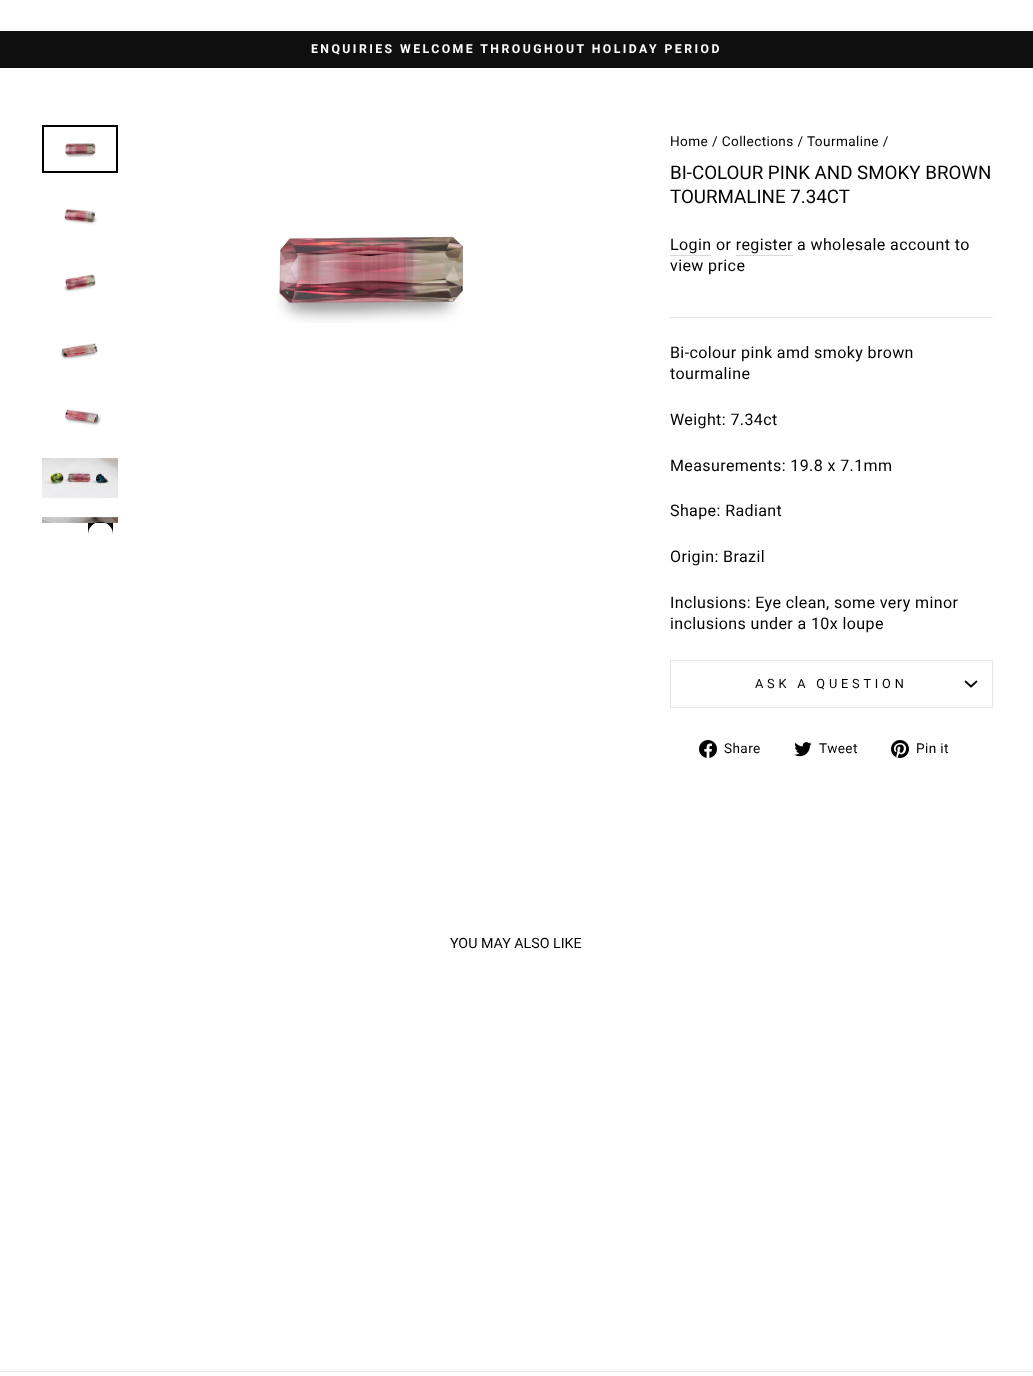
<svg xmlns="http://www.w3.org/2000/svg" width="1033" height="1376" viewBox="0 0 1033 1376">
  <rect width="100%" height="100%" fill="#fff"/>
  <path d="M0 31h1033v37H0z" fill="#0f0f0f"/>
  <image x="64" y="140" width="32" height="18" href="img/1.png"/>
  <path d="M43 126h74v46H43z" fill="none" stroke="#000" stroke-width="2"/>
  <image x="64" y="207" width="34" height="18" href="img/2.png"/>
  <image x="63" y="274" width="33" height="19" href="img/3.png"/>
  <image x="60" y="343" width="38" height="17" href="img/4.png"/>
  <image x="62" y="409" width="39" height="18" href="img/5.png"/>
  <image x="42" y="458" width="76" height="40" href="img/6.png"/>
  <image x="42" y="517" width="76" height="6" href="img/7.png"/>
  <path d="M100.5 522C107.5 522 113 527.5 113 534.5V523H88V534.5C88 527.5 93.5 522 100.5 522Z" fill="#000"/>
  <image x="277" y="236" width="187" height="87" href="img/8.png"/>
  <path d="M670 255h41v1H670z" fill="#d9d9d9"/>
  <path d="M736 255h57v1H736z" fill="#d9d9d9"/>
  <path d="M670 317h323v1H670z" fill="#e8e8e1"/>
  <path d="M670 707h323v1H670z" fill="#e8e8e1"/>
  <path d="M670 660h323v1H670z" fill="#e8e8e1"/>
  <path d="M992 660h1v47H992z" fill="#e8e8e1"/>
  <path d="M670 660h1v47H670z" fill="#e8e8e1"/>
  <path d="M965.5 681.5L971 686.5L976.5 681.5" fill="none" stroke="#000" stroke-width="1.7" stroke-linecap="round" stroke-linejoin="round"/>
  <image x="699" y="740" width="18" height="18" href="img/9.png"/>
  <image x="794" y="742" width="18" height="15" href="img/10.png"/>
  <image x="891" y="740" width="18" height="18" href="img/11.png"/>
  <path d="M0 1371h1033v1H0z" fill="#e8e8e1"/>
  <text x="311" y="53" font-family="Roboto" font-size="12.25" font-weight="bold" letter-spacing="2.45" fill="#fff">ENQUIRIES WELCOME THROUGHOUT HOLIDAY PERIOD</text>
  <text x="670" y="146" font-family="Roboto" font-size="13.6" letter-spacing="0.4" fill="#000">Home / Collections / Tourmaline /</text>
  <g font-family="Roboto" font-size="18.75" fill="#000">
    <text x="670" y="179">BI-COLOUR PINK AND SMOKY BROWN</text>
    <text x="670" y="203">TOURMALINE 7.34CT</text>
  </g>
  <g font-family="Roboto" font-size="16" letter-spacing="0.4" fill="#000">
    <text x="670" y="250">Login</text>
    <text x="716" y="250">or register</text>
    <text x="797" y="250">a wholesale account to</text>
    <text x="670" y="271">view price</text>
    <text x="670" y="358">Bi-colour pink amd smoky brown</text>
    <text x="670" y="379">tourmaline</text>
    <text x="670" y="425">Weight: 7.34ct</text>
    <text x="670" y="471">Measurements: 19.8 x 7.1mm</text>
    <text x="670" y="516">Shape: Radiant</text>
    <text x="670" y="562">Origin: Brazil</text>
    <text x="670" y="608">Inclusions: Eye clean, some very minor</text>
    <text x="670" y="629">inclusions under a 10x loupe</text>
  </g>
  <text x="755" y="688" font-family="Roboto" font-size="12.75" letter-spacing="3.8" fill="#000">ASK A QUESTION</text>
  <g font-family="Roboto" font-size="13.6" letter-spacing="0.4" fill="#000">
    <text x="724" y="753">Share</text>
    <text x="819" y="753">Tweet</text>
    <text x="916" y="753">Pin it</text>
  </g>
  <text x="450" y="948" font-family="Roboto" font-size="14.25" fill="#000">YOU MAY ALSO LIKE</text>
</svg>
